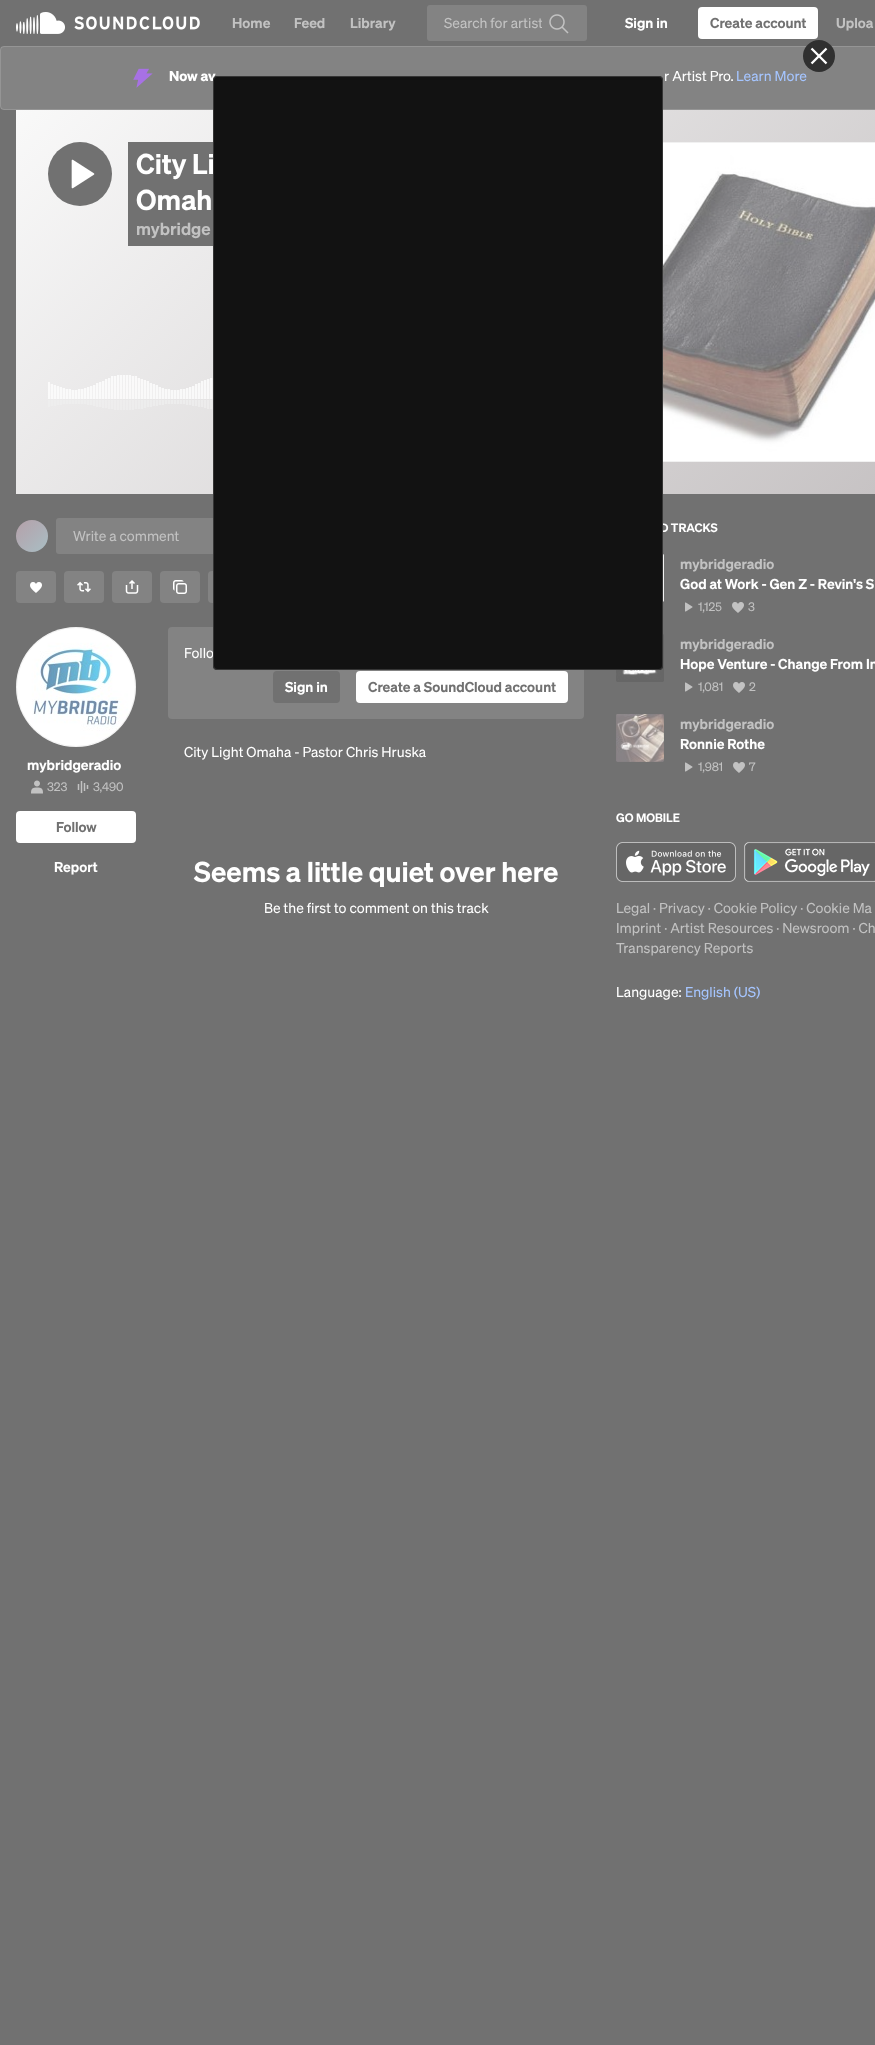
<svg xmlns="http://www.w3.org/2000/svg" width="875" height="2045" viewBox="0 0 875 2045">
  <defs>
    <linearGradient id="g1" gradientUnits="userSpaceOnUse" x1="152" y1="-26" x2="808" y2="630"><stop offset="0" stop-color="#f9f9f9"/><stop offset="1" stop-color="#c4c0c1"/></linearGradient>
    <linearGradient id="g2" gradientUnits="userSpaceOnUse" x1="16" y1="520" x2="48" y2="552"><stop offset="0" stop-color="#b5a0a9"/><stop offset="1" stop-color="#a9bec4"/></linearGradient>
    <clipPath id="clip1"><path d="M444 12h98v22H444z"/></clipPath>
  </defs>
  <rect width="100%" height="100%" fill="#717171"/>
  <image x="16" y="12" width="184" height="22" href="img/1.png"/>
  <rect x="427" y="5" width="160" height="36" rx="3" fill="#838383"/>
  <image x="549" y="14" width="20" height="20" href="img/2.png"/>
  <rect x="698" y="7" width="120" height="32" rx="4" fill="#fff"/>
  <rect y="46" width="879" height="64" rx="4" fill="#838383"/>
  <rect x="0.5" y="46.5" width="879" height="63" rx="3.5" fill="none" stroke="#ffffff26"/>
  <image x="133" y="68" width="20" height="20" href="img/3.png"/>
  <path d="M16 110h859v384H16z" fill="url(#g1)"/>
  <circle cx="80" cy="174" r="32" fill="#717171"/>
  <image x="71" y="159" width="24" height="30" href="img/4.png"/>
  <path d="M128 142h85v104H128z" fill="#717171"/>
  <image x="663" y="142" width="212" height="320" href="img/5.png"/>
  <path d="M592.5 142.5h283v319H592.5z" fill="none" stroke="#7171711a"/>
  <image x="48" y="375" width="165" height="35" href="img/6.png"/>
  <circle cx="32" cy="536" r="16" fill="url(#g2)"/>
  <rect x="56" y="518" width="456" height="36" rx="3" fill="#838383"/>
  <rect x="16" y="571" width="40" height="32" rx="4" fill="#838383"/>
  <image x="30" y="582" width="12" height="11" href="img/7.png"/>
  <rect x="64" y="571" width="40" height="32" rx="4" fill="#838383"/>
  <image x="77" y="581" width="14" height="12" href="img/8.png"/>
  <rect x="112" y="571" width="40" height="32" rx="4" fill="#838383"/>
  <image x="125" y="580" width="14" height="14" href="img/9.png"/>
  <rect x="160" y="571" width="40" height="32" rx="4" fill="#838383"/>
  <image x="173" y="580" width="14" height="14" href="img/10.png"/>
  <rect x="208" y="571" width="40" height="32" rx="4" fill="#838383"/>
  <image x="16" y="627" width="120" height="120" href="img/11.png"/>
  <circle cx="76" cy="687" r="59.5" fill="none" stroke="#7171711a"/>
  <image x="31" y="780" width="12" height="14" href="img/12.png"/>
  <image x="77" y="781" width="12" height="12" href="img/13.png"/>
  <rect x="16" y="811" width="120" height="32" rx="4" fill="#fff"/>
  <rect x="168" y="627" width="416" height="92" rx="4" fill="#838383"/>
  <rect x="273" y="671" width="67" height="32" rx="4" fill="#717171"/>
  <rect x="356" y="671" width="212" height="32" rx="4" fill="#fff"/>
  <image x="663" y="554" width="2" height="48" href="img/14.png"/>
  <path d="M616.5 554.5h47v47H616.5z" fill="none" stroke="#7171711a"/>
  <image x="685" y="602" width="8" height="10" href="img/15.png"/>
  <image x="732" y="602" width="12" height="11" href="img/16.png"/>
  <image x="616" y="634" width="48" height="48" href="img/17.png"/>
  <image x="685" y="682" width="8" height="10" href="img/15.png"/>
  <image x="733" y="682" width="12" height="11" href="img/16.png"/>
  <image x="616" y="714" width="48" height="48" href="img/18.png"/>
  <path d="M616.5 714.5h47v47H616.5z" fill="none" stroke="#7171711a"/>
  <image x="685" y="762" width="8" height="10" href="img/15.png"/>
  <image x="733" y="762" width="12" height="11" href="img/16.png"/>
  <image x="616" y="842" width="120" height="40" href="img/19.png"/>
  <image x="744" y="842" width="131" height="40" href="img/20.png"/>
  <g font-family="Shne" font-size="14" font-weight="600" fill="#c2c2c2">
    <text x="232" y="28">Home</text>
    <text x="294" y="28">Feed</text>
    <text x="350" y="28">Library</text>
  </g>
  <g clip-path="url(#clip1)">
    <text x="444" y="28" font-family="Shne" font-size="14" fill="#c2c2c2">Search for artist</text>
  </g>
  <text x="625" y="28" font-family="Shne" font-size="14" font-weight="600" fill="#fff">Sign in</text>
  <text x="710" y="28" font-family="Shne" font-size="14" font-weight="600" fill="#717171">Create account</text>
  <text x="836" y="28" font-family="Shne" font-size="14" font-weight="600" fill="#c2c2c2">Uploa</text>
  <text x="169" y="81" font-family="Shne" font-size="14" font-weight="bold" fill="#fff">Now av</text>
  <text x="664" y="81" font-family="Shne" font-size="14" fill="#fff">r Artist Pro.</text>
  <text x="736" y="81" font-family="Shne" font-size="14" fill="#a5c5ff">Learn More</text>
  <g font-family="Shne" font-size="28" font-weight="600" fill="#fff">
    <text x="136" y="174">City Li</text>
    <text x="136" y="210">Omah</text>
  </g>
  <text x="136" y="235" font-family="Shne" font-size="17" font-weight="600" fill="#c2c2c2">mybridge</text>
  <text x="73" y="541" font-family="Shne" font-size="14" fill="#c2c2c2">Write a comment</text>
  <text x="27" y="770" font-family="Shne" font-size="14" font-weight="600" fill="#fff">mybridgeradio</text>
  <g font-family="Shne" font-size="12" fill="#c2c2c2">
    <text x="47" y="791">323</text>
    <text x="93" y="791">3,490</text>
  </g>
  <text x="56" y="832" font-family="Shne" font-size="14" font-weight="600" fill="#717171">Follow</text>
  <text x="54" y="872" font-family="Shne" font-size="14" font-weight="600" fill="#fff">Report</text>
  <text x="184" y="658" font-family="Shne" font-size="14" fill="#fff">Follo</text>
  <text x="285" y="692" font-family="Shne" font-size="14" font-weight="600" fill="#fff">Sign in</text>
  <text x="368" y="692" font-family="Shne" font-size="14" font-weight="600" fill="#717171">Create a SoundCloud account</text>
  <text x="184" y="757" font-family="Shne" font-size="14" fill="#fff">City Light Omaha - Pastor Chris Hruska</text>
  <text x="194" y="882" font-family="Shne" font-size="28" font-weight="600" fill="#fff">Seems a little quiet over here</text>
  <text x="264" y="913" font-family="Shne" font-size="14" fill="#fff">Be the first to comment on this track</text>
  <text x="660" y="532" font-family="Shne" font-size="12" font-weight="600" fill="#fff">D TRACKS</text>
  <text x="680" y="569" font-family="Shne" font-size="14" font-weight="600" fill="#c2c2c2">mybridgeradio</text>
  <text x="680" y="589" font-family="Shne" font-size="14" font-weight="600" fill="#fff">God at Work - Gen Z - Revin's S</text>
  <g font-family="Shne" font-size="12" fill="#c2c2c2">
    <text x="698" y="611">1,125</text>
    <text x="748" y="611">3</text>
  </g>
  <text x="680" y="649" font-family="Shne" font-size="14" font-weight="600" fill="#c2c2c2">mybridgeradio</text>
  <text x="680" y="669" font-family="Shne" font-size="14" font-weight="600" fill="#fff">Hope Venture - Change From In</text>
  <g font-family="Shne" font-size="12" fill="#c2c2c2">
    <text x="698" y="691">1,081</text>
    <text x="749" y="691">2</text>
  </g>
  <text x="680" y="729" font-family="Shne" font-size="14" font-weight="600" fill="#c2c2c2">mybridgeradio</text>
  <text x="680" y="749" font-family="Shne" font-size="14" font-weight="600" fill="#fff">Ronnie Rothe</text>
  <g font-family="Shne" font-size="12" fill="#c2c2c2">
    <text x="698" y="771">1,981</text>
    <text x="749" y="771">7</text>
  </g>
  <text x="616" y="822" font-family="Shne" font-size="12" font-weight="600" fill="#fff">GO MOBILE</text>
  <g font-family="Shne" font-size="14" fill="#c2c2c2">
    <text x="616" y="913">Legal · Privacy · Cookie Policy · Cookie Ma</text>
    <text x="616" y="933">Imprint · Artist Resources · Newsroom · Ch</text>
    <text x="616" y="953">Transparency Reports</text>
  </g>
  <text x="616" y="997" font-family="Shne" font-size="14" fill="#fff">Language:</text>
  <text x="685" y="997" font-family="Shne" font-size="14" fill="#a5c5ff">English (US)</text>
  <circle cx="819" cy="56" r="16" fill="#303030"/>
  <image x="810" y="47" width="18" height="18" href="img/21.png"/>
  <rect x="213" y="76" width="450" height="594" rx="4" fill="#121212"/>
  <rect x="213.5" y="76.5" width="449" height="593" rx="3.5" fill="none" stroke="#ffffff26"/>
</svg>
